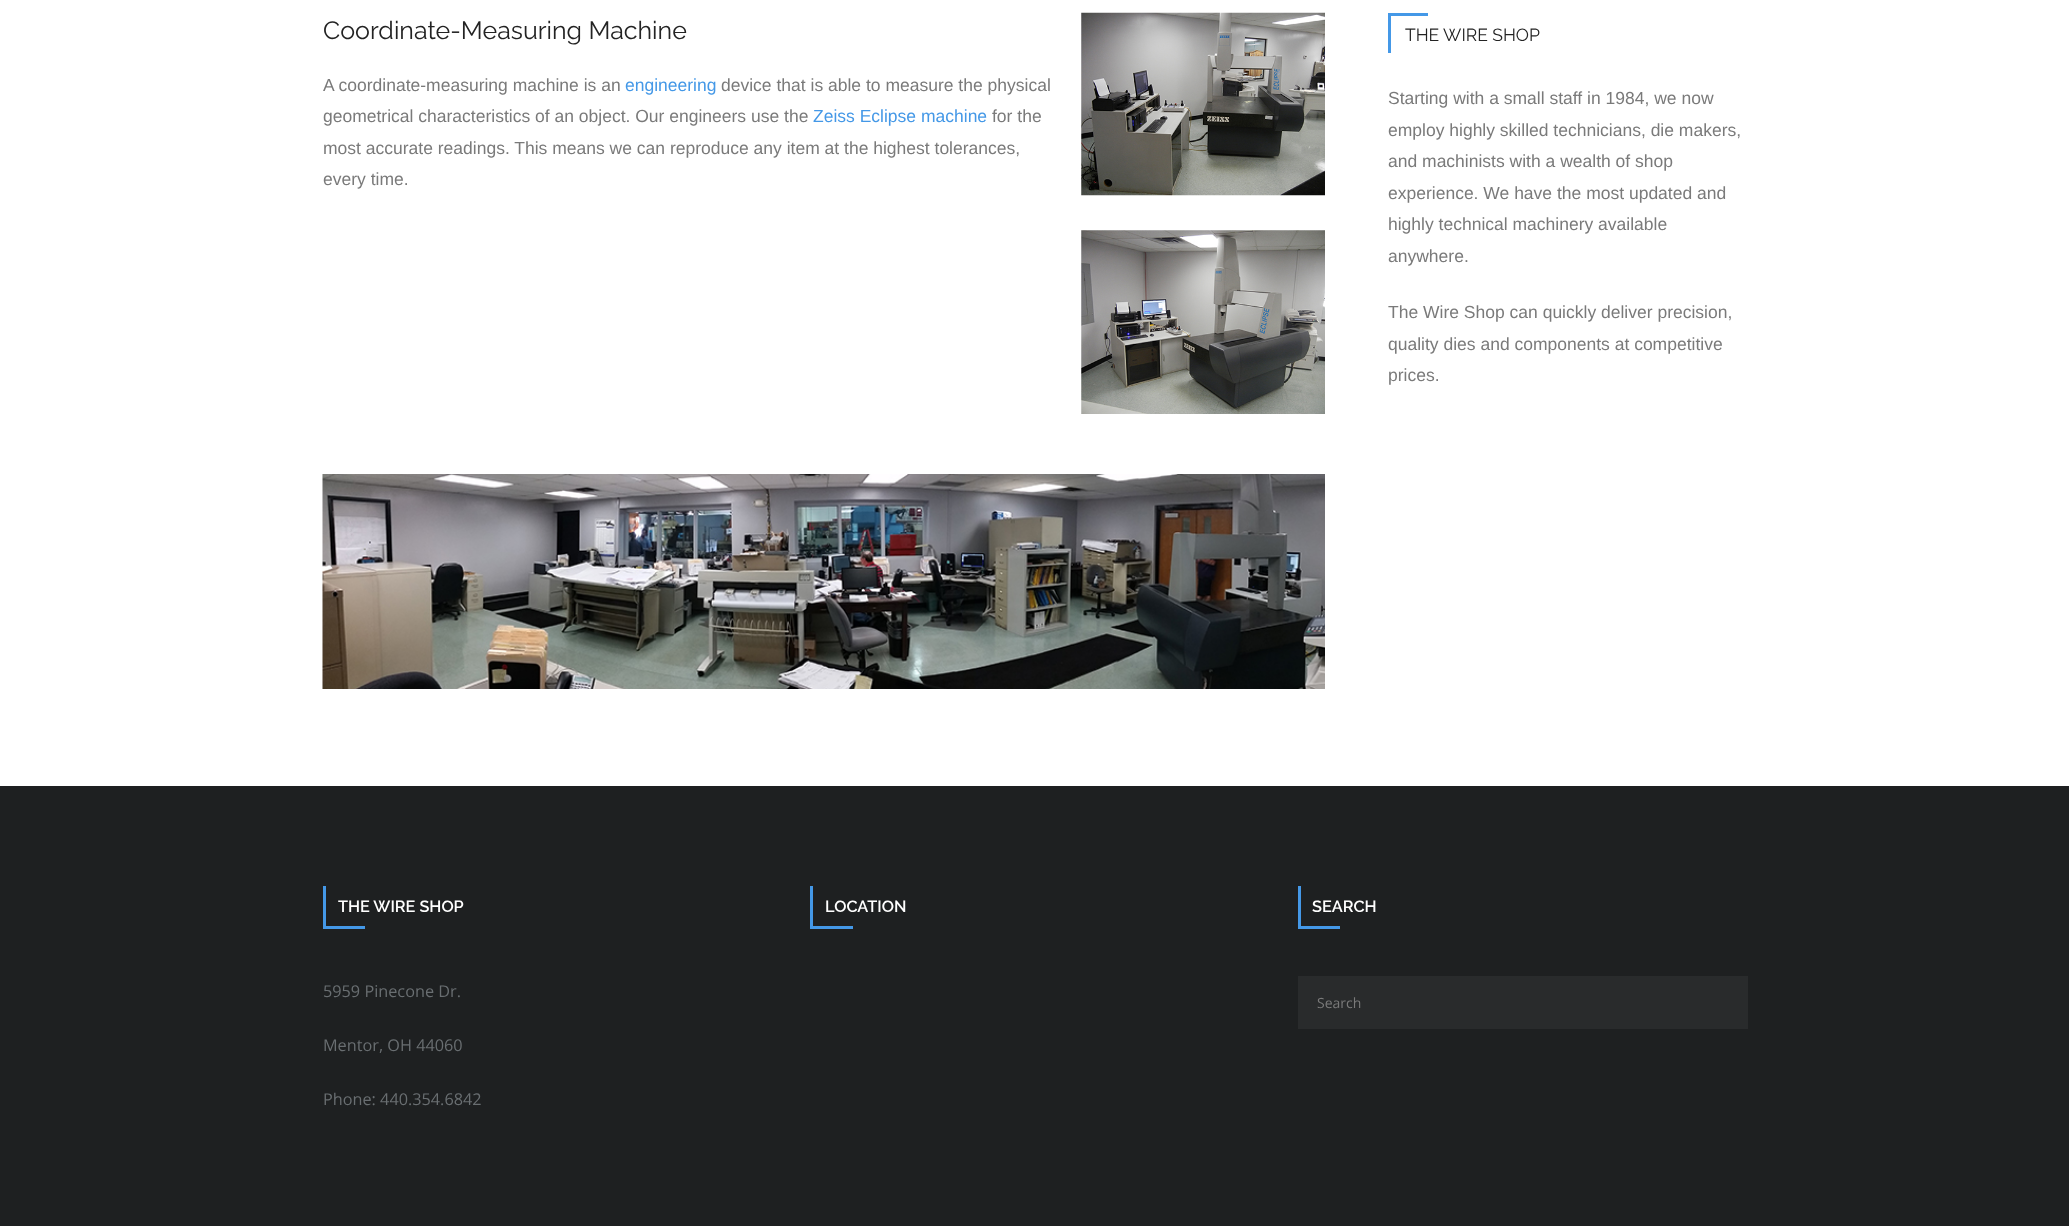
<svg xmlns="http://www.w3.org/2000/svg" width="2069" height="1226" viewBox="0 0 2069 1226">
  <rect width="100%" height="100%" fill="#fff"/>
  <image x="1081" y="12" width="244" height="184" href="img/1.png"/>
  <image x="1081" y="230" width="244" height="184" href="img/2.png"/>
  <image x="322" y="474" width="1003" height="215" href="img/3.png"/>
  <path d="M1388 13h40v3H1388z" fill="#4498e7"/>
  <path d="M1388 13h3v40H1388z" fill="#4498e7"/>
  <path d="M0 786h2069v440H0z" fill="#1e2021"/>
  <path d="M323 926h42v3H323z" fill="#4498e7"/>
  <path d="M323 886h3v43H323z" fill="#4498e7"/>
  <path d="M810 926h43v3H810z" fill="#4498e7"/>
  <path d="M810 886h3v43H810z" fill="#4498e7"/>
  <path d="M1298 926h42v3H1298z" fill="#4498e7"/>
  <path d="M1298 886h3v43H1298z" fill="#4498e7"/>
  <path d="M1298 976h450v53H1298z" fill="#292b2c"/>
  <text x="323" y="39" font-family="Raleway" font-size="25" fill="#232323">Coordinate-Measuring Machine</text>
  <text x="323" y="91" font-family="Liberation Sans" font-size="17.5" fill="#7a7a7a">A coordinate-measuring machine is an</text>
  <text x="625" y="91" font-family="Liberation Sans" font-size="17.5" fill="#4498e7">engineering</text>
  <g font-family="Liberation Sans" font-size="17.5" fill="#7a7a7a">
    <text x="721" y="91">device that is able to measure the physical</text>
    <text x="323" y="122">geometrical characteristics of an object. Our engineers use the</text>
  </g>
  <text x="813" y="122" font-family="Liberation Sans" font-size="17.5" fill="#4498e7">Zeiss Eclipse machine</text>
  <g font-family="Liberation Sans" font-size="17.5" fill="#7a7a7a">
    <text x="992" y="122">for the</text>
    <text x="323" y="154">most accurate readings. This means we can reproduce any item at the highest tolerances,</text>
    <text x="323" y="185">every time.</text>
  </g>
  <text x="1405" y="41" font-family="Raleway" font-size="17.5" fill="#232323">THE WIRE SHOP</text>
  <g font-family="Liberation Sans" font-size="17.5" fill="#7a7a7a">
    <text x="1388" y="104">Starting with a small staff in 1984, we now</text>
    <text x="1388" y="136">employ highly skilled technicians, die makers,</text>
    <text x="1388" y="167">and machinists with a wealth of shop</text>
    <text x="1388" y="199">experience. We have the most updated and</text>
    <text x="1388" y="230">highly technical machinery available</text>
    <text x="1388" y="262">anywhere.</text>
    <text x="1388" y="318">The Wire Shop can quickly deliver precision,</text>
    <text x="1388" y="350">quality dies and components at competitive</text>
    <text x="1388" y="381">prices.</text>
  </g>
  <text x="338" y="912" font-family="Raleway" font-size="16.25" font-weight="600" fill="#fff">THE WIRE SHOP</text>
  <g font-family="Open Sans" font-size="16.25" fill="#696e71">
    <text x="323" y="997">5959 Pinecone Dr.</text>
    <text x="323" y="1051">Mentor, OH 44060</text>
    <text x="323" y="1105">Phone: 440.354.6842</text>
  </g>
  <g font-family="Raleway" font-size="16.25" font-weight="600" fill="#fff">
    <text x="825" y="912">LOCATION</text>
    <text x="1312" y="912">SEARCH</text>
  </g>
  <text x="1317" y="1008" font-family="Open Sans" font-size="14" fill="#7a7a7a">Search</text>
</svg>
